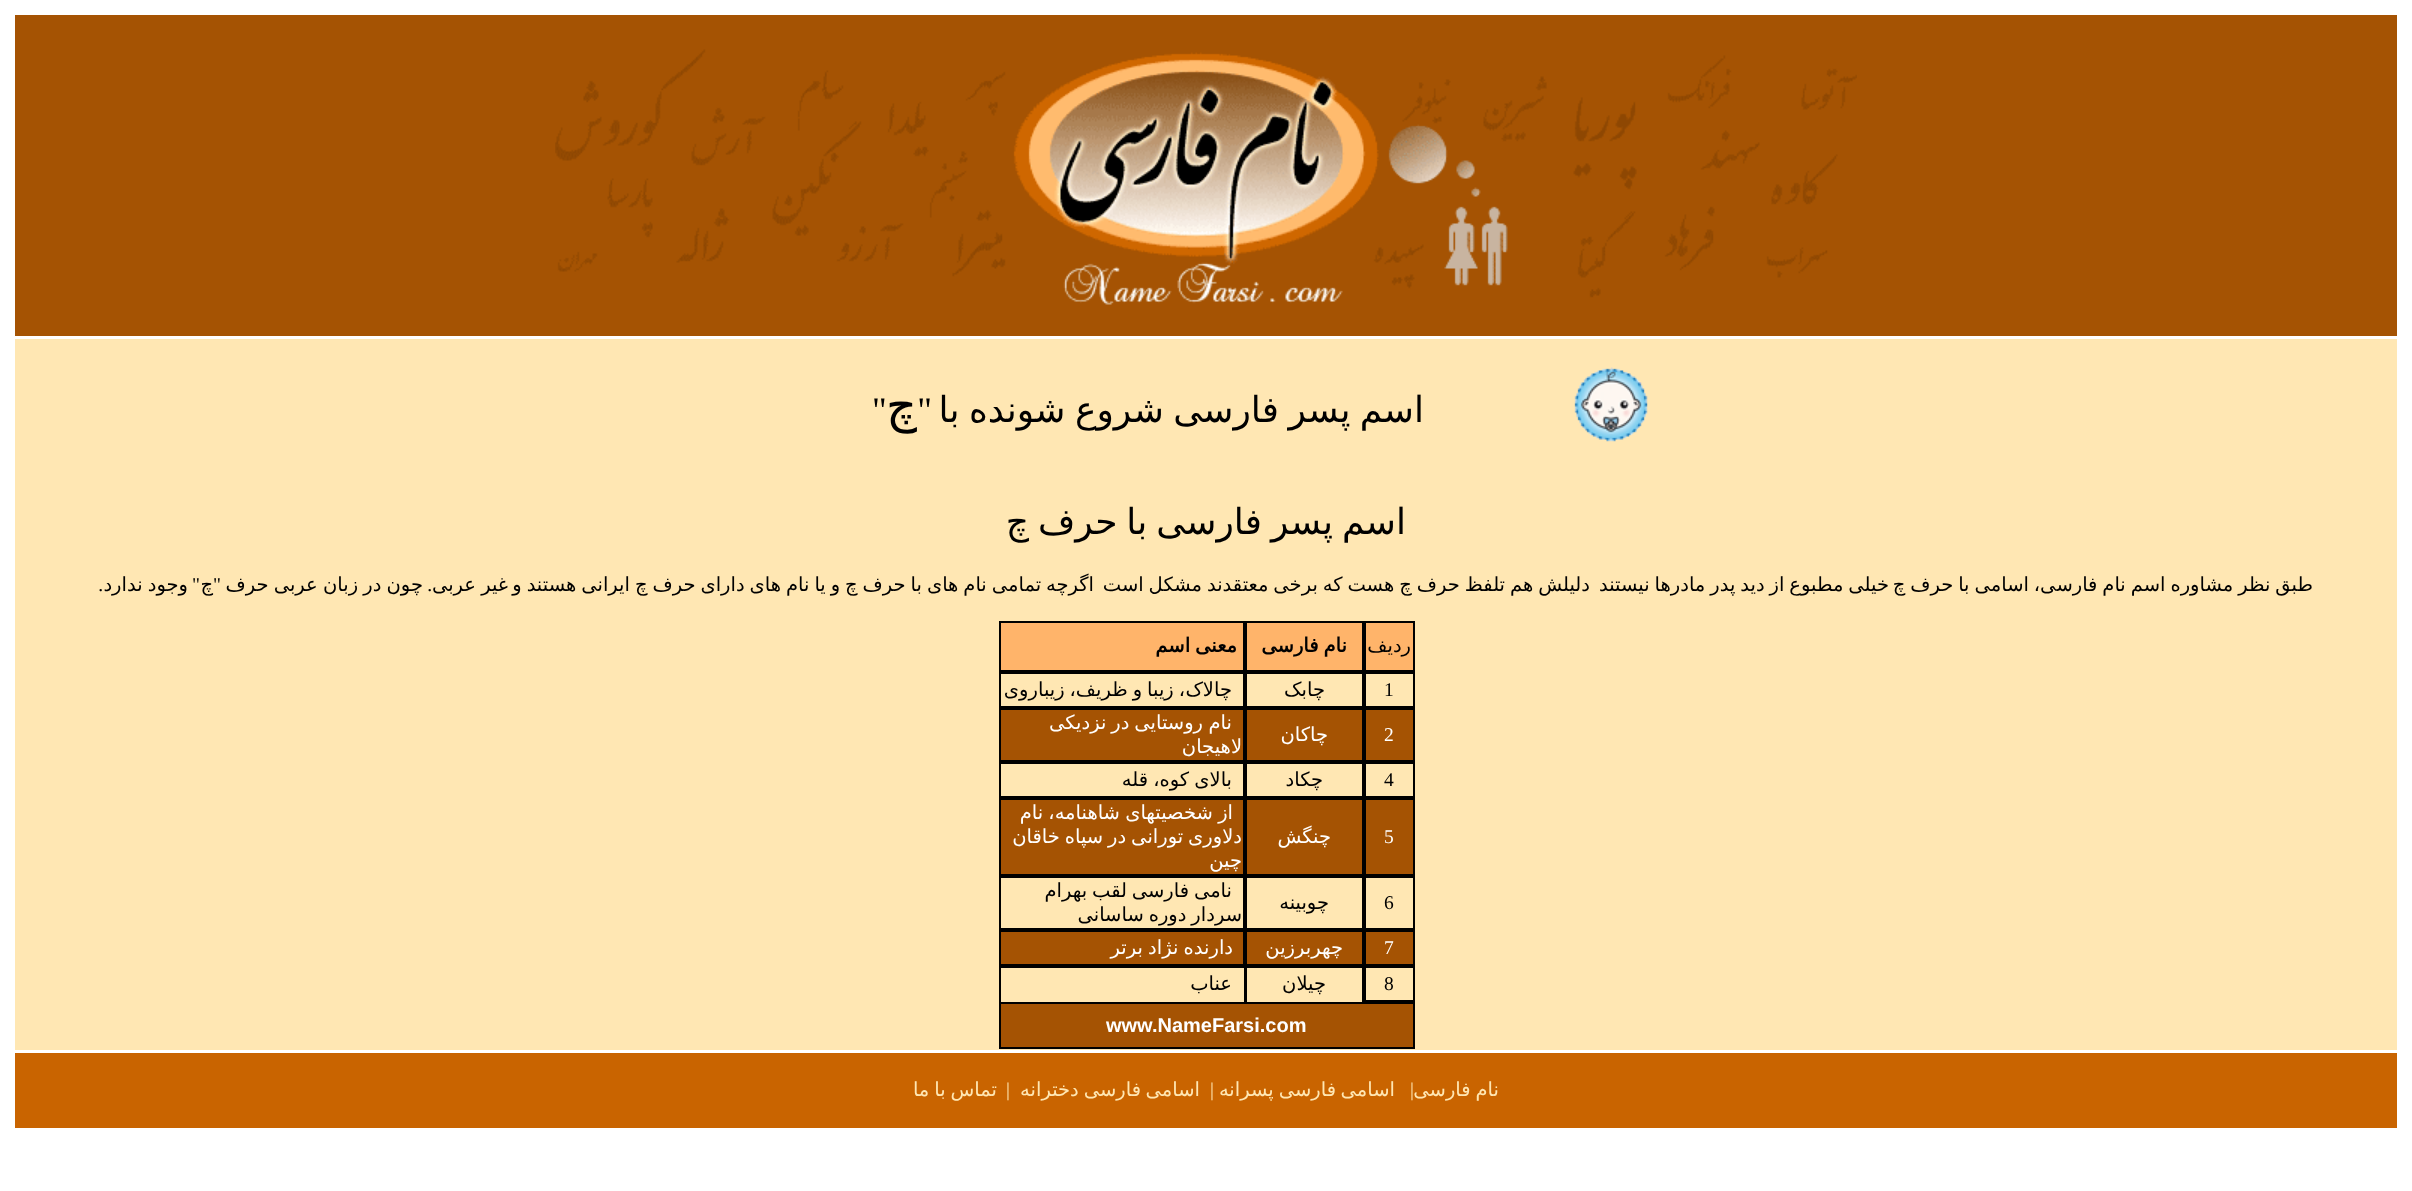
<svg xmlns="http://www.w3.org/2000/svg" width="2412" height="1191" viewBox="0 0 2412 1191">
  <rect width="100%" height="100%" fill="#fff"/>
  <path d="M15 15h2382v321H15z" fill="#a55303"/>
  <image x="555" y="49" width="1302" height="256" href="img/1.png"/>
  <path d="M15 339h2382v711H15z" fill="#ffe7b3"/>
  <image x="1574" y="367" width="74" height="75" href="img/2.png"/>
  <path d="M1365 622h49v49H1365z" fill="#ffb46a" stroke="#000" stroke-width="2"/>
  <path d="M1246 622h117v49H1246z" fill="#ffb46a" stroke="#000" stroke-width="2"/>
  <path d="M1000 622h244v49H1000z" fill="#ffb46a" stroke="#000" stroke-width="2"/>
  <path d="M1365 673h49v34H1365z" fill="none" stroke="#000" stroke-width="2"/>
  <path d="M1246 673h117v34H1246z" fill="none" stroke="#000" stroke-width="2"/>
  <path d="M1000 673h244v34H1000z" fill="none" stroke="#000" stroke-width="2"/>
  <path d="M1365 709h49v52H1365z" fill="#a55303" stroke="#000" stroke-width="2"/>
  <path d="M1246 709h117v52H1246z" fill="#a55303" stroke="#000" stroke-width="2"/>
  <path d="M1000 709h244v52H1000z" fill="#a55303" stroke="#000" stroke-width="2"/>
  <path d="M1365 763h49v34H1365z" fill="none" stroke="#000" stroke-width="2"/>
  <path d="M1246 763h117v34H1246z" fill="none" stroke="#000" stroke-width="2"/>
  <path d="M1000 763h244v34H1000z" fill="none" stroke="#000" stroke-width="2"/>
  <path d="M1365 799h49v76H1365z" fill="#a55303" stroke="#000" stroke-width="2"/>
  <path d="M1246 799h117v76H1246z" fill="#a55303" stroke="#000" stroke-width="2"/>
  <path d="M1000 799h244v76H1000z" fill="#a55303" stroke="#000" stroke-width="2"/>
  <path d="M1365 877h49v52H1365z" fill="none" stroke="#000" stroke-width="2"/>
  <path d="M1246 877h117v52H1246z" fill="none" stroke="#000" stroke-width="2"/>
  <path d="M1000 877h244v52H1000z" fill="none" stroke="#000" stroke-width="2"/>
  <path d="M1365 931h49v34H1365z" fill="#a55303" stroke="#000" stroke-width="2"/>
  <path d="M1246 931h117v34H1246z" fill="#a55303" stroke="#000" stroke-width="2"/>
  <path d="M1000 931h244v34H1000z" fill="#a55303" stroke="#000" stroke-width="2"/>
  <path d="M1365 967h49v34H1365z" fill="none" stroke="#000" stroke-width="2"/>
  <path d="M999 966h365v2H999z" fill="#000"/>
  <path d="M1362 966h2v36H1362z" fill="#000"/>
  <path d="M1244 966h3v36H1244z" fill="#000"/>
  <path d="M999 966h2v36H999z" fill="#000"/>
  <path d="M1000 1003h414v45H1000z" fill="#a55303" stroke="#000" stroke-width="2"/>
  <path d="M15 1053h2382v75H15z" fill="#c96400"/>
  <text x="1424" y="422" word-spacing="-2" font-family="DejaVu Sans" font-size="36" direction="rtl" fill="#000">اسم پسر فارسی شروع شونده با</text>
  <text x="932" y="422" font-family="Liberation Serif" font-size="36" direction="rtl" fill="#000">"</text>
  <text x="917" y="422" font-family="DejaVu Sans" font-size="48" direction="rtl" fill="#000">چ</text>
  <text x="872" y="422" font-family="Liberation Serif" font-size="36" fill="#000">"</text>
  <text x="1406" y="534" word-spacing="-2.5" font-family="DejaVu Sans" font-size="36" direction="rtl" fill="#000">اسم پسر فارسی با حرف چ</text>
  <g font-family="DejaVu Sans" font-size="19.5" direction="rtl" fill="#000">
    <text x="2313" y="591" word-spacing="-1.25">طبق نظر مشاوره اسم نام فارسی، اسامی با حرف چ</text>
    <text x="1590" y="591" word-spacing="-1.25">دلیلش هم تلفظ حرف چ هست که برخی معتقدند</text>
    <text x="1889" y="591" word-spacing="-1.25">خیلی مطبوع از دید پدر مادرها نیستند</text>
    <text x="1202" y="591" word-spacing="-1.25">مشکل است</text>
    <text x="1094" y="591" word-spacing="-1.25">اگرچه تمامی نام های با حرف چ و یا نام های دارای حرف چ ایرانی هستند و</text>
    <text x="508" y="591" word-spacing="-1">غیر عربی</text>
  </g>
  <text x="432" y="591" font-family="Liberation Serif" font-size="19.5" direction="rtl" fill="#000">.</text>
  <text x="423" y="591" word-spacing="-1" font-family="DejaVu Sans" font-size="19.5" direction="rtl" fill="#000">چون در زبان عربی حرف</text>
  <text x="221" y="591" font-family="Liberation Serif" font-size="19.5" direction="rtl" fill="#000">"</text>
  <text x="213" y="591" font-family="DejaVu Sans" font-size="19.5" direction="rtl" fill="#000">چ</text>
  <text x="200" y="591" font-family="Liberation Serif" font-size="19.5" direction="rtl" fill="#000">"</text>
  <text x="188" y="591" word-spacing="-1" font-family="DejaVu Sans" font-size="19.5" direction="rtl" fill="#000">وجود ندارد</text>
  <text x="103" y="591" font-family="Liberation Serif" font-size="19.5" direction="rtl" fill="#000">.</text>
  <text x="1411" y="652" font-family="DejaVu Sans" font-size="19.5" direction="rtl" fill="#000">ردیف</text>
  <g font-family="DejaVu Sans" font-size="19.5" font-weight="bold" direction="rtl" fill="#000">
    <text x="1347" y="652" word-spacing="-1.25">نام فارسی</text>
    <text x="1237" y="652" word-spacing="-1.25">معنی اسم</text>
  </g>
  <text x="1384" y="696" font-family="Liberation Serif" font-size="19.5" fill="#000">1</text>
  <g font-family="DejaVu Sans" font-size="19.5" direction="rtl" fill="#000">
    <text x="1325" y="696">چابک</text>
    <text x="1185" y="696" word-spacing="-1.25">، زیبا و ظریف، زیباروی</text>
    <text x="1232" y="696">چالاک</text>
  </g>
  <text x="1384" y="741" font-family="Liberation Serif" font-size="19.5" fill="#fff">2</text>
  <g font-family="DejaVu Sans" font-size="19.5" direction="rtl" fill="#fff">
    <text x="1328" y="741">چاکان</text>
    <text x="1232" y="729">نام</text>
    <text x="1203" y="729" word-spacing="-1.25">روستایی در نزدیکی</text>
    <text x="1242" y="753">لاهیجان</text>
  </g>
  <text x="1384" y="786" font-family="Liberation Serif" font-size="19.5" fill="#000">4</text>
  <g font-family="DejaVu Sans" font-size="19.5" direction="rtl" fill="#000">
    <text x="1323" y="786">چکاد</text>
    <text x="1232" y="786" word-spacing="-1">بالای کوه، قله</text>
  </g>
  <text x="1384" y="843" font-family="Liberation Serif" font-size="19.5" fill="#fff">5</text>
  <g font-family="DejaVu Sans" font-size="19.5" direction="rtl" fill="#fff">
    <text x="1331" y="843">چنگش</text>
    <text x="1233" y="819" word-spacing="-1">از شخصیتهای شاهنامه، نام</text>
    <text x="1242" y="843" word-spacing="-1.25">دلاوری تورانی در سپاه خاقان</text>
    <text x="1242" y="867">چین</text>
  </g>
  <text x="1384" y="909" font-family="Liberation Serif" font-size="19.5" fill="#000">6</text>
  <g font-family="DejaVu Sans" font-size="19.5" direction="rtl" fill="#000">
    <text x="1329" y="909">چوبینه</text>
    <text x="1232" y="897" word-spacing="-1.25">نامی فارسی</text>
    <text x="1127" y="897" word-spacing="-1.25">لقب بهرام</text>
    <text x="1242" y="921" word-spacing="-1.25">سردار دوره ساسانی</text>
  </g>
  <text x="1384" y="954" font-family="Liberation Serif" font-size="19.5" fill="#fff">7</text>
  <g font-family="DejaVu Sans" font-size="19.5" direction="rtl" fill="#fff">
    <text x="1343" y="954">چهربرزین</text>
    <text x="1233" y="954" word-spacing="-1">دارنده نژاد برتر</text>
  </g>
  <text x="1384" y="990" font-family="Liberation Serif" font-size="19.5" fill="#000">8</text>
  <g font-family="DejaVu Sans" font-size="19.5" direction="rtl" fill="#000">
    <text x="1326" y="990">چیلان</text>
    <text x="1232" y="990">عناب</text>
  </g>
  <text x="1106" y="1032" font-family="Liberation Sans" font-size="20" font-weight="bold" fill="#fff">www.NameFarsi.com</text>
  <text x="1499" y="1096" word-spacing="-1.25" font-family="DejaVu Sans" font-size="19.5" direction="rtl" fill="#ffe7b3">نام فارسی</text>
  <text x="1410" y="1096" font-family="Liberation Serif" font-size="19.5" fill="#ffe7b3">|</text>
  <g font-family="DejaVu Sans" font-size="19.5" direction="rtl" fill="#ffe7b3">
    <text x="1395" y="1096">اسامی</text>
    <text x="1336" y="1096" word-spacing="-1.25">فارسی پسرانه</text>
  </g>
  <text x="1210" y="1096" font-family="Liberation Serif" font-size="19.5" fill="#ffe7b3">|</text>
  <g font-family="DejaVu Sans" font-size="19.5" direction="rtl" fill="#ffe7b3">
    <text x="1200" y="1096">اسامی</text>
    <text x="1141" y="1096" word-spacing="-1.25">فارسی دخترانه</text>
  </g>
  <text x="1006" y="1096" font-family="Liberation Serif" font-size="19.5" fill="#ffe7b3">|</text>
  <text x="997" y="1096" word-spacing="-1.25" font-family="DejaVu Sans" font-size="19.5" direction="rtl" fill="#ffe7b3">تماس با ما</text>
</svg>
